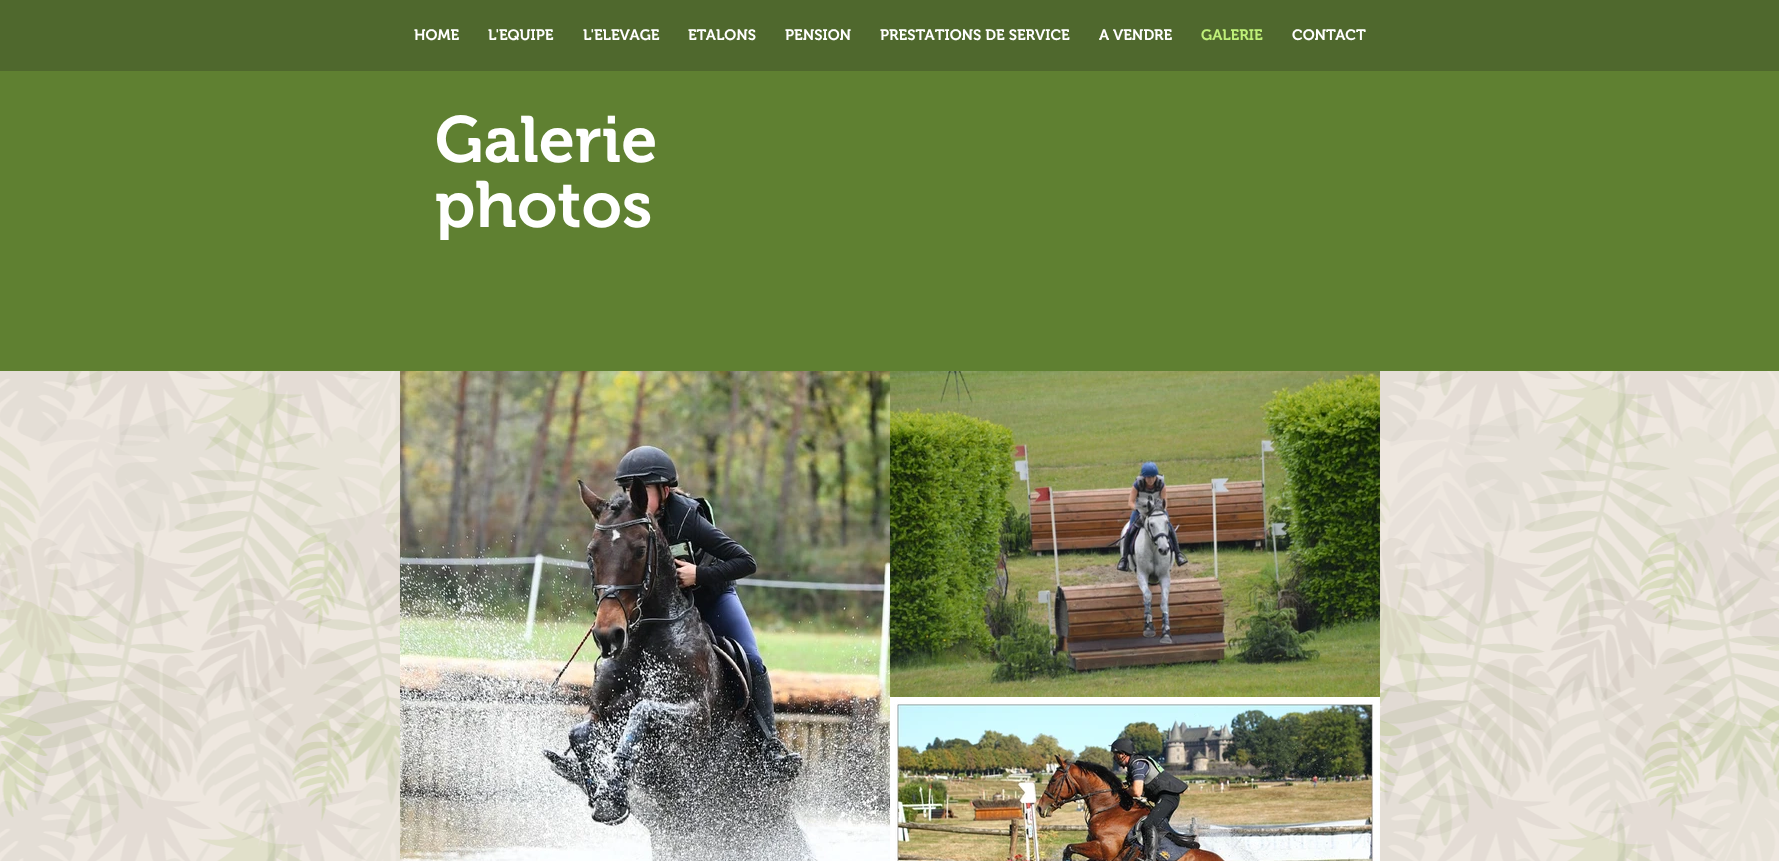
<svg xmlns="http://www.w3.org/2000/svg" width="1779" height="861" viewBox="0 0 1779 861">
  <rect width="100%" height="100%" fill="#eee7df"/>
  <path d="M0 0h1779v71H0z" fill="#4f682d"/>
  <path d="M0 71h1779v300H0z" fill="#5f8031"/>
  <image x="0" y="371" width="1779" height="490" href="img/4.png"/>
  <image x="400" y="371" width="490" height="490" href="img/1.png"/>
  <image x="890" y="371" width="490" height="326" href="img/2.png"/>
  <image x="890" y="697" width="490" height="164" href="img/3.png"/>
  <g font-family="'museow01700'" font-size="15" font-weight="600" fill="#fff">
    <text x="414" y="40">HOME</text>
    <text x="488" y="40">L'EQUIPE</text>
    <text x="583" y="40">L'ELEVAGE</text>
    <text x="688" y="40">ETALONS</text>
    <text x="785" y="40">PENSION</text>
    <text x="880" y="40">PRESTATIONS DE SERVICE</text>
    <text x="1099" y="40">A VENDRE</text>
  </g>
  <text x="1201" y="40" font-family="'museow01700'" font-size="15" font-weight="600" fill="#bff079">GALERIE</text>
  <text x="1292" y="40" font-family="'museow01700'" font-size="15" font-weight="600" fill="#fff">CONTACT</text>
  <g font-family="'museow01700'" font-size="65" font-weight="600" fill="#fff">
    <text x="435" y="162">Galerie</text>
    <text x="435" y="227">photos</text>
  </g>
</svg>
